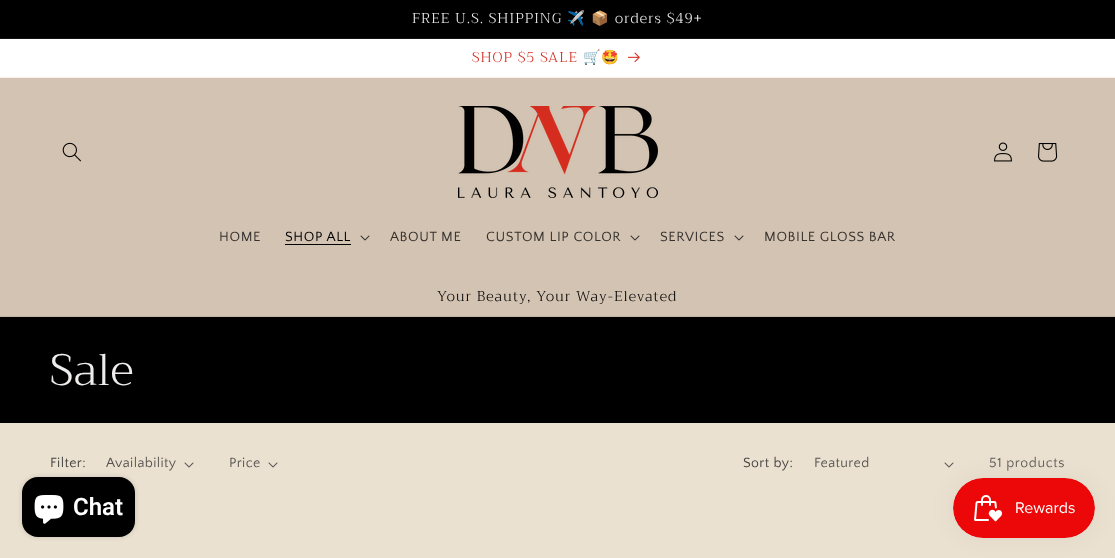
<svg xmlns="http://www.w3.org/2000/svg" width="1115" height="558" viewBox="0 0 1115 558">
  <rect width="100%" height="100%" fill="#d3c3b2"/>
  <path d="M0 0h1115v38H0z" fill="#000"/>
  <path d="M0 38h1115v1H0z" fill="#131313"/>
  <path d="M0 39h1115v38H0z" fill="#fff"/>
  <path d="M0 77h1115v1H0z" fill="#fceeed"/>
  <image x="628" y="52" width="12" height="11" href="img/1.png"/>
  <image x="62" y="142" width="19" height="20" href="img/2.png"/>
  <image x="458" y="106" width="200" height="92" href="img/3.png"/>
  <image x="994" y="142" width="18" height="20" href="img/4.png"/>
  <image x="1038" y="143" width="20" height="19" href="img/5.png"/>
  <path d="M285 244h66v1H285z" fill="#000"/>
  <image x="360" y="235" width="10" height="6" href="img/6.png"/>
  <image x="630" y="235" width="10" height="6" href="img/6.png"/>
  <image x="734" y="235" width="10" height="6" href="img/6.png"/>
  <path d="M0 316h1115v1H0z" fill="#c2b3a4"/>
  <path d="M0 317h1115v106H0z" fill="#000"/>
  <path d="M0 423h1115v135H0z" fill="#ebe1d1"/>
  <image x="184" y="462" width="10" height="6" href="img/7.png"/>
  <image x="268" y="462" width="10" height="6" href="img/7.png"/>
  <image x="944" y="462" width="10" height="6" href="img/7.png"/>
  <rect x="22" y="477" width="113" height="60" rx="16" fill="#00000026" filter="blur(2.5px)"/>
  <rect x="22" y="477" width="113" height="60" rx="16" fill="#000"/>
  <image x="34" y="495" width="30" height="29" href="img/8.png"/>
  <rect x="953" y="478" width="142" height="60" rx="30" fill="#0000000d" filter="blur(12.5px)"/>
  <image x="953" y="478" width="142" height="60" href="img/9.png"/>
  <text x="412" y="23" font-family="Trirong" font-size="14.25" font-weight="300" letter-spacing="1" fill="#efecec">FREE U.S. SHIPPING</text>
  <g font-family="Noto Color Emoji" font-size="14.25" letter-spacing="1" fill="#efecec">
    <text x="567" y="23">✈️</text>
    <text x="591" y="23">📦</text>
  </g>
  <text x="615" y="23" font-family="Trirong" font-size="14.25" font-weight="300" letter-spacing="1" fill="#efecec">orders $49+</text>
  <text x="472" y="62" font-family="Trirong" font-size="14.25" font-weight="300" letter-spacing="1" fill="#d62d20">SHOP $5 SALE</text>
  <text x="583" y="62" font-family="Noto Color Emoji" font-size="14.25" letter-spacing="1" fill="#d62d20">🛒🤩</text>
  <text x="219" y="241" font-family="Quattrocento Sans" font-size="14" letter-spacing="0.6" fill="#35312d">HOME</text>
  <text x="285" y="241" font-family="Quattrocento Sans" font-size="14" letter-spacing="0.6" fill="#000">SHOP ALL</text>
  <g font-family="Quattrocento Sans" font-size="14" letter-spacing="0.6" fill="#35312d">
    <text x="390" y="241">ABOUT ME</text>
    <text x="486" y="241">CUSTOM LIP COLOR</text>
    <text x="660" y="241">SERVICES</text>
    <text x="764" y="241">MOBILE GLOSS BAR</text>
  </g>
  <text x="437" y="301" font-family="Trirong" font-size="14.25" font-weight="300" letter-spacing="1" fill="#000">Your Beauty, Your Way-Elevated</text>
  <text x="50" y="385" font-family="Trirong" font-size="44" font-weight="300" letter-spacing="0.5" fill="#efecec">Sale</text>
  <text x="50" y="467" font-family="Quattrocento Sans" font-size="14" letter-spacing="0.4" fill="#43413f">Filter:</text>
  <g font-family="Quattrocento Sans" font-size="14" letter-spacing="0.4" fill="#575450">
    <text x="106" y="467">Availability</text>
    <text x="229" y="467">Price</text>
  </g>
  <text x="743" y="467" font-family="Quattrocento Sans" font-size="14" letter-spacing="0.4" fill="#43413f">Sort by:</text>
  <text x="814" y="467" font-family="Quattrocento Sans" font-size="14" letter-spacing="0.4" fill="#575450">Featured</text>
  <text x="989" y="467" font-family="Quattrocento Sans" font-size="14" letter-spacing="0.6" fill="#605d59">51 products</text>
  <text x="73" y="515" font-family="Roboto" font-size="24" font-weight="600" fill="#fff">Chat</text>
</svg>
